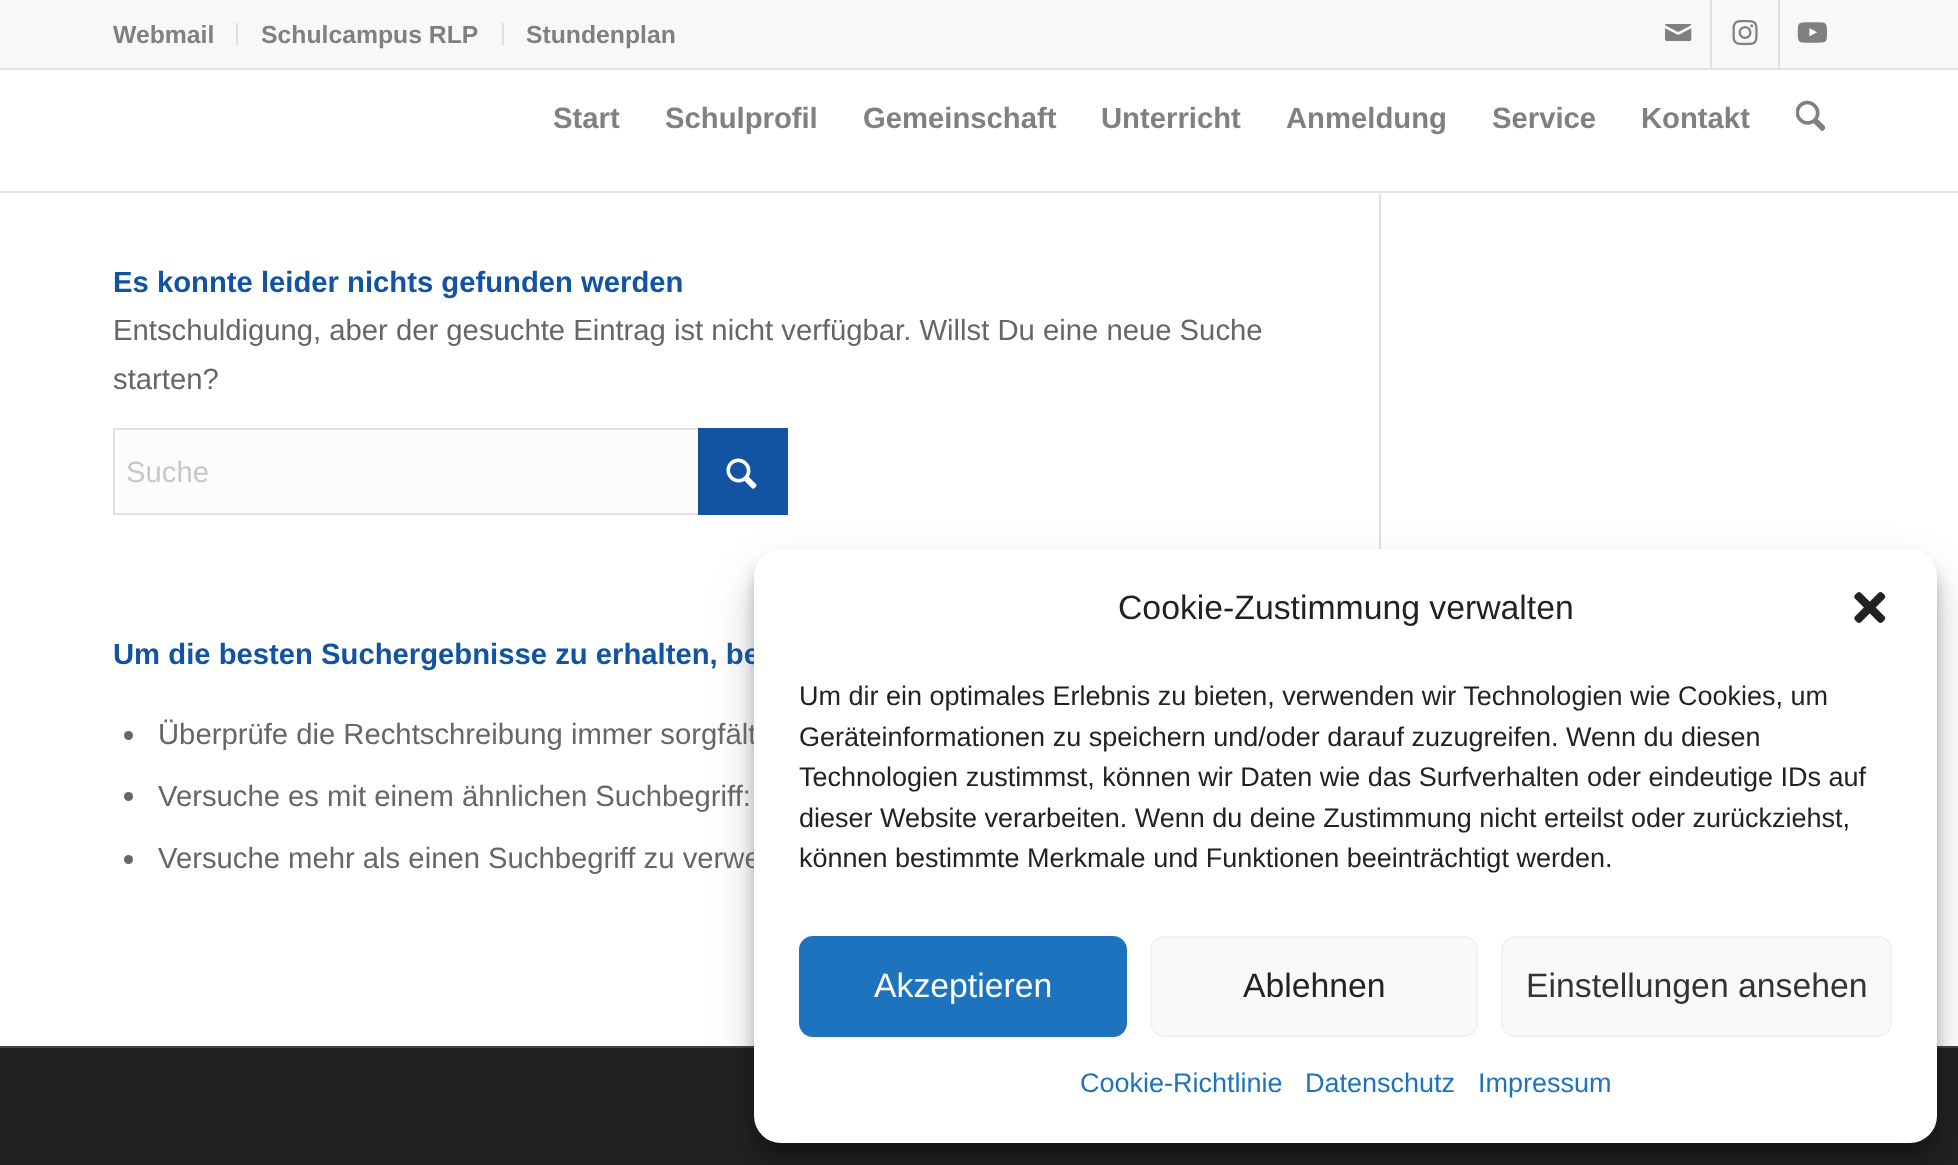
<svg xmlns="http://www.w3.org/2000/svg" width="1958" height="1165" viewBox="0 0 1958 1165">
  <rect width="100%" height="100%" fill="#fff"/>
  <path d="M0 0h1958v68H0z" fill="#f8f8f8"/>
  <path d="M0 68h1958v2H0z" fill="#e1e1e1"/>
  <path d="M236 23h2v22H236z" fill="#e1e1e1"/>
  <path d="M502 23h2v22H502z" fill="#e1e1e1"/>
  <path d="M1710 0h2v68H1710z" fill="#e1e1e1"/>
  <image x="1665" y="24" width="27" height="17" href="img/1.png"/>
  <path d="M1778 0h2v68H1778z" fill="#e1e1e1"/>
  <image x="1732" y="20" width="26" height="26" href="img/2.png"/>
  <image x="1797" y="22" width="30" height="21" href="img/3.png"/>
  <path d="M0 191h1958v2H0z" fill="#e1e1e1"/>
  <image x="1796" y="100" width="29" height="31" href="img/4.png"/>
  <path d="M1379 194h2v355H1379z" fill="#e1e1e1"/>
  <path d="M115 430h583v83H115z" fill="#fcfcfc"/>
  <path d="M114 429h673v85H114z" fill="none" stroke="#e1e1e1" stroke-width="2"/>
  <path d="M698 428h90v87H698z" fill="#1253a2"/>
  <image x="726" y="458" width="31" height="31" href="img/5.png"/>
  <circle cx="128.5" cy="735.5" r="4.5" fill="#666"/>
  <circle cx="128.5" cy="796.5" r="4.5" fill="#666"/>
  <circle cx="128.5" cy="859.5" r="4.5" fill="#666"/>
  <path d="M0 1048h1958v117H0z" fill="#222"/>
  <path d="M0 1046h1958v2H0z" fill="#444"/>
  <rect x="754" y="563" width="1183" height="594" rx="27" fill="#0000003b" filter="blur(7px)"/>
  <rect x="754" y="572" width="1183" height="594" rx="27" fill="#00000030" filter="blur(22.5px)"/>
  <g font-family="Liberation Sans" font-size="24.75" font-weight="bold" fill="#808080">
    <text x="113" y="43">Webmail</text>
    <text x="261" y="43">Schulcampus RLP</text>
    <text x="526" y="43">Stundenplan</text>
  </g>
  <g font-family="Liberation Sans" font-size="29.25" font-weight="bold" fill="#808080">
    <text x="553" y="128">Start</text>
    <text x="665" y="128">Schulprofil</text>
    <text x="863" y="128">Gemeinschaft</text>
    <text x="1101" y="128">Unterricht</text>
    <text x="1286" y="128">Anmeldung</text>
    <text x="1492" y="128">Service</text>
    <text x="1641" y="128">Kontakt</text>
  </g>
  <text x="113" y="292" font-family="Liberation Sans" font-size="29.25" font-weight="bold" fill="#1253a2">Es konnte leider nichts gefunden werden</text>
  <g font-family="Liberation Sans" font-size="29.25" fill="#666">
    <text x="113" y="340">Entschuldigung, aber der gesuchte Eintrag ist nicht verfügbar. Willst Du eine neue Suche</text>
    <text x="113" y="389">starten?</text>
  </g>
  <text x="126" y="482" font-family="Liberation Sans" font-size="29.25" fill="#c7c7c7">Suche</text>
  <text x="113" y="664" font-family="Liberation Sans" font-size="29.25" font-weight="bold" fill="#1253a2">Um die besten Suchergebnisse zu erhalten, be</text>
  <g font-family="Liberation Sans" font-size="29.25" fill="#666">
    <text x="158" y="744">Überprüfe die Rechtschreibung immer sorgfält</text>
    <text x="158" y="806">Versuche es mit einem ähnlichen Suchbegriff:</text>
    <text x="158" y="868">Versuche mehr als einen Suchbegriff zu verwe</text>
  </g>
  <rect x="754" y="549" width="1183" height="594" rx="27" fill="#fff"/>
  <text x="1118" y="619" font-family="Liberation Sans" font-size="33.75" fill="#222">Cookie-Zustimmung verwalten</text>
  <image x="1854" y="592" width="32" height="31" href="img/6.png"/>
  <g font-family="Liberation Sans" font-size="27" fill="#222">
    <text x="799" y="705">Um dir ein optimales Erlebnis zu bieten, verwenden wir Technologien wie Cookies, um</text>
    <text x="799" y="746">Geräteinformationen zu speichern und/oder darauf zuzugreifen. Wenn du diesen</text>
    <text x="799" y="786">Technologien zustimmst, können wir Daten wie das Surfverhalten oder eindeutige IDs auf</text>
    <text x="799" y="827">dieser Website verarbeiten. Wenn du deine Zustimmung nicht erteilst oder zurückziehst,</text>
    <text x="799" y="867">können bestimmte Merkmale und Funktionen beeinträchtigt werden.</text>
  </g>
  <rect x="800" y="937" width="326" height="99" rx="13" fill="#1e73be" stroke="#1e73be" stroke-width="2"/>
  <text x="874" y="997" font-family="Liberation Sans" font-size="33.75" fill="#fff">Akzeptieren</text>
  <rect x="1151" y="937" width="326" height="99" rx="13" fill="#f9f9f9" stroke="#f2f2f2" stroke-width="2"/>
  <text x="1243" y="997" font-family="Liberation Sans" font-size="33.75" fill="#222">Ablehnen</text>
  <rect x="1502" y="937" width="389" height="99" rx="13" fill="#f9f9f9" stroke="#f2f2f2" stroke-width="2"/>
  <text x="1526" y="997" font-family="Liberation Sans" font-size="33.75" fill="#333">Einstellungen ansehen</text>
  <g font-family="Liberation Sans" font-size="27" fill="#1e73be">
    <text x="1080" y="1092">Cookie-Richtlinie</text>
    <text x="1305" y="1092">Datenschutz</text>
    <text x="1478" y="1092">Impressum</text>
  </g>
</svg>
